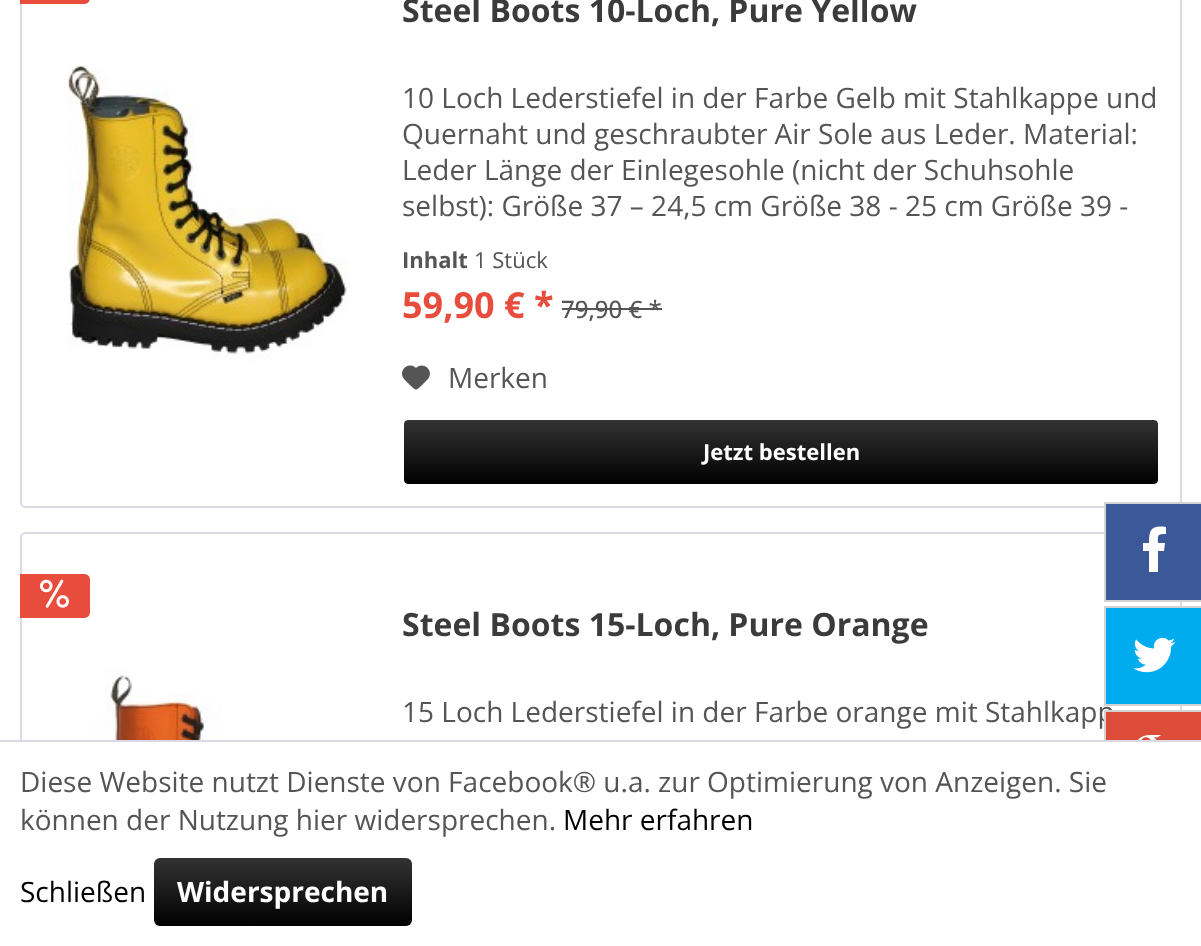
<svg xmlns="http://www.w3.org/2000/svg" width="1201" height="946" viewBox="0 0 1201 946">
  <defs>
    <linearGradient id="g1" gradientUnits="userSpaceOnUse" x1="781" y1="420" x2="781" y2="484"><stop offset="0" stop-color="#333"/><stop offset="1" stop-color="#000"/></linearGradient>
    <linearGradient id="g2" gradientUnits="userSpaceOnUse" x1="283" y1="858" x2="283" y2="926"><stop offset="0" stop-color="#333"/><stop offset="1" stop-color="#000"/></linearGradient>
  </defs>
  <rect width="100%" height="100%" fill="#fff"/>
  <rect x="21" y="-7" width="1160" height="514" rx="5" fill="none" stroke="#dadae5" stroke-width="2"/>
  <path d="M20-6H84C87.5-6 90-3.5 90 0V-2C90 1.5 87.5 4 84 4H20Z" fill="#e74c3c"/>
  <image x="67" y="63" width="282" height="298" href="img/1.png"/>
  <path d="M562 308h100v2H562z" fill="#555"/>
  <image x="402" y="365" width="28" height="25" href="img/2.png"/>
  <rect x="404" y="420" width="754" height="64" rx="4" fill="url(#g1)"/>
  <rect x="403" y="419" width="756" height="66" rx="5" fill="none" stroke="#fff" stroke-width="2"/>
  <rect x="21" y="533" width="1160" height="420" rx="5" fill="none" stroke="#dadae5" stroke-width="2"/>
  <path d="M20 574H84C87.5 574 90 576.5 90 580V612C90 615.5 87.5 618 84 618H20Z" fill="#e74c3c"/>
  <image x="40" y="579" width="29" height="29" href="img/3.png"/>
  <image x="93" y="668" width="240" height="72" href="img/4.png"/>
  <path d="M1106 504h95v96H1106z" fill="#3b5998"/>
  <path d="M1104 502h97v2H1104z" fill="#d3d3d3"/>
  <path d="M1104 600h97v2H1104z" fill="#d3d3d3"/>
  <path d="M1104 502h2v100H1104z" fill="#d3d3d3"/>
  <path d="M1166 527V534C1157 534 1158 535 1158 543H1165L1164 551H1158V572H1149V551H1143V543H1149C1149 530 1151 525 1166 527Z" fill="#fff"/>
  <path d="M1104 606h97v2H1104z" fill="#d3d3d3"/>
  <path d="M20 742h1162v204H20z" fill="#fff"/>
  <path d="M0 740h1201v2H0z" fill="#dadae5"/>
  <rect x="154" y="858" width="258" height="68" rx="6" fill="url(#g2)"/>
  <text x="402" y="22" font-family="Open Sans" font-size="32" font-weight="bold" fill="#3b3b3b">Steel Boots 10-Loch, Pure Yellow</text>
  <g font-family="Open Sans" font-size="28" fill="#555">
    <text x="402" y="108">10 Loch Lederstiefel in der Farbe Gelb mit Stahlkappe und</text>
    <text x="402" y="144">Quernaht und geschraubter Air Sole aus Leder. Material:</text>
    <text x="402" y="180">Leder Länge der Einlegesohle (nicht der Schuhsohle</text>
    <text x="402" y="216">selbst): Größe 37 – 24,5 cm Größe 38 - 25 cm Größe 39 -</text>
  </g>
  <text x="402" y="268" font-family="Open Sans" font-size="22" font-weight="bold" fill="#555">Inhalt</text>
  <text x="474" y="268" font-family="Open Sans" font-size="22" fill="#555">1 Stück</text>
  <text x="402" y="318" font-family="Open Sans" font-size="36" font-weight="bold" fill="#e74c3c">59,90 € *</text>
  <text x="561" y="318" font-family="Open Sans" font-size="24" font-weight="500" fill="#555">79,90 € *</text>
  <text x="448" y="388" font-family="Open Sans" font-size="28" fill="#555">Merken</text>
  <text x="703" y="460" font-family="Open Sans" font-size="22" font-weight="bold" fill="#fff">Jetzt bestellen</text>
  <text x="402" y="636" font-family="Open Sans" font-size="32" font-weight="bold" fill="#3b3b3b">Steel Boots 15-Loch, Pure Orange</text>
  <text x="402" y="722" font-family="Open Sans" font-size="28" fill="#555">15 Loch Lederstiefel in der Farbe orange mit Stahlkapp</text>
  <path d="M1106 608h95v96H1106z" fill="#00aced"/>
  <path d="M1104 704h97v2H1104z" fill="#d3d3d3"/>
  <path d="M1104 606h2v100H1104z" fill="#d3d3d3"/>
  <image x="1133" y="637" width="43" height="36" href="img/5.png"/>
  <path d="M1106 712h95v28H1106z" fill="#dd4b39"/>
  <path d="M1104 710h97v2H1104z" fill="#d3d3d3"/>
  <path d="M1104 710h2v30H1104z" fill="#d3d3d3"/>
  <image x="1138" y="735" width="23" height="5" href="img/6.png"/>
  <g font-family="Open Sans" font-size="28" fill="#555">
    <text x="20" y="792">Diese Website nutzt Dienste von Facebook® u.a. zur Optimierung von Anzeigen. Sie</text>
    <text x="20" y="830">können der Nutzung hier widersprechen.</text>
  </g>
  <g font-family="Open Sans" font-size="28" fill="#000">
    <text x="563" y="830">Mehr erfahren</text>
    <text x="20" y="902">Schließen</text>
  </g>
  <text x="177" y="902" font-family="Open Sans" font-size="28" font-weight="bold" fill="#fff">Widersprechen</text>
</svg>
